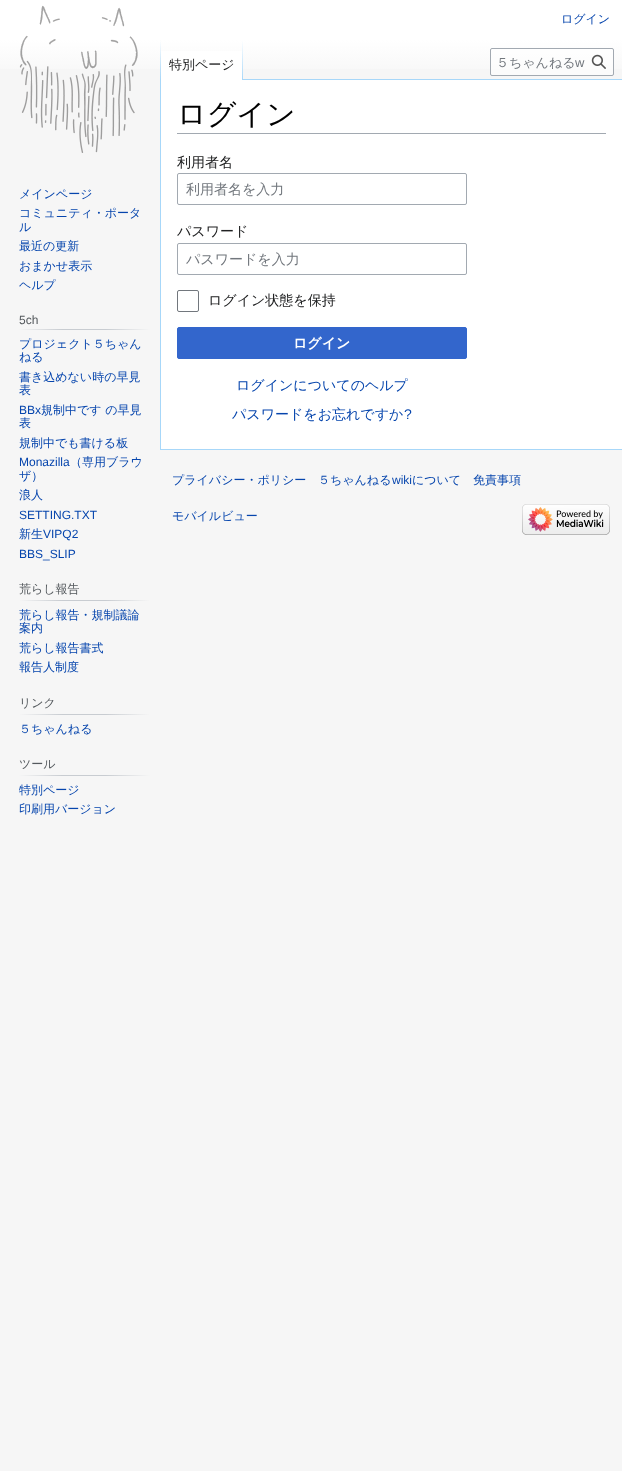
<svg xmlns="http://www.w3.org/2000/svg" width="622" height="1471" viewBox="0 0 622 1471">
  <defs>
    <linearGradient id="g1" gradientUnits="userSpaceOnUse" x1="311" y1="0" x2="311" y2="80"><stop offset="0.5" stop-color="#fff"/><stop offset="1" stop-color="#f6f6f6"/></linearGradient>
    <linearGradient id="g2" gradientUnits="userSpaceOnUse" x1="161" y1="40" x2="161" y2="80"><stop offset="0" stop-color="#a7d7f9" stop-opacity="0"/><stop offset="1" stop-color="#a7d7f9"/></linearGradient>
    <linearGradient id="g3" gradientUnits="userSpaceOnUse" x1="243" y1="40" x2="243" y2="80"><stop offset="0" stop-color="#fff"/><stop offset="1" stop-color="#a7d7f9"/></linearGradient>
    <linearGradient id="g4" gradientUnits="userSpaceOnUse" x1="19" y1="330" x2="150" y2="330"><stop offset="0" stop-color="#f6f6f6"/><stop offset="0.33" stop-color="#c8ccd1"/><stop offset="0.66" stop-color="#c8ccd1"/><stop offset="1" stop-color="#f6f6f6"/></linearGradient>
    <linearGradient id="g5" gradientUnits="userSpaceOnUse" x1="19" y1="601" x2="150" y2="601"><stop offset="0" stop-color="#f6f6f6"/><stop offset="0.33" stop-color="#c8ccd1"/><stop offset="0.66" stop-color="#c8ccd1"/><stop offset="1" stop-color="#f6f6f6"/></linearGradient>
    <linearGradient id="g6" gradientUnits="userSpaceOnUse" x1="19" y1="715" x2="150" y2="715"><stop offset="0" stop-color="#f6f6f6"/><stop offset="0.33" stop-color="#c8ccd1"/><stop offset="0.66" stop-color="#c8ccd1"/><stop offset="1" stop-color="#f6f6f6"/></linearGradient>
    <linearGradient id="g7" gradientUnits="userSpaceOnUse" x1="19" y1="776" x2="150" y2="776"><stop offset="0" stop-color="#f6f6f6"/><stop offset="0.33" stop-color="#c8ccd1"/><stop offset="0.66" stop-color="#c8ccd1"/><stop offset="1" stop-color="#f6f6f6"/></linearGradient>
  </defs>
  <rect width="100%" height="100%" fill="#f6f6f6"/>
  <path d="M0 0h622v69H0z" fill="url(#g1)"/>
  <path d="M160 449h462v1H160z" fill="#a7d7f9"/>
  <path d="M160 79h1v371H160z" fill="#a7d7f9"/>
  <path d="M160 40h1v40H160z" fill="url(#g2)"/>
  <path d="M161 51h81v29H161z" fill="#fff"/>
  <path d="M242 40h1v40H242z" fill="url(#g3)"/>
  <rect x="490.5" y="48.5" width="123" height="27" rx="1.5" fill="#ffffff80" stroke="#a2a9b1"/>
  <image x="591" y="54" width="15" height="15" href="img/1.png"/>
  <image x="19" y="5" width="119" height="148" href="img/2.png"/>
  <path d="M19 329h131v1H19z" fill="url(#g4)"/>
  <path d="M19 600h131v1H19z" fill="url(#g5)"/>
  <path d="M19 714h131v1H19z" fill="url(#g6)"/>
  <path d="M19 775h131v1H19z" fill="url(#g7)"/>
  <path d="M161 80h461v369H161z" fill="#fff"/>
  <path d="M243 79h379v1H243z" fill="#a7d7f9"/>
  <path d="M177 133h429v1H177z" fill="#a2a9b1"/>
  <rect x="177.5" y="173.5" width="289" height="31" rx="1.5" fill="none" stroke="#a2a9b1"/>
  <rect x="177.5" y="243.5" width="289" height="31" rx="1.5" fill="none" stroke="#a2a9b1"/>
  <rect x="177.5" y="290.5" width="21" height="21" rx="1.5" fill="none" stroke="#72777d"/>
  <rect x="177.5" y="327.5" width="289" height="31" rx="1.5" fill="#36c" stroke="#36c"/>
  <image x="522" y="504" width="88" height="31" href="img/3.png"/>
  <text x="561" y="23" font-family="WenQuanYi Zen Hei" font-size="12" font-weight="500" fill="#0645ad">ログイン</text>
  <text x="169" y="69" font-family="WenQuanYi Zen Hei" font-size="13" font-weight="500" fill="#202122">特別ページ</text>
  <text x="496" y="67" font-family="WenQuanYi Zen Hei" font-size="13" font-weight="500" fill="#72777d">５ちゃんねる</text>
  <text x="575" y="67" font-family="Liberation Sans" font-size="13" fill="#72777d">w</text>
  <g font-family="WenQuanYi Zen Hei" font-size="12" font-weight="500" fill="#0645ad">
    <text x="19" y="198">メインページ</text>
    <text x="19" y="217">コミュニティ・ポータ</text>
    <text x="19" y="231">ル</text>
    <text x="19" y="250">最近の更新</text>
    <text x="19" y="270">おまかせ表示</text>
    <text x="19" y="289">ヘルプ</text>
  </g>
  <text x="19" y="324" font-family="Liberation Sans" font-size="12" fill="#54595d">5ch</text>
  <g font-family="WenQuanYi Zen Hei" font-size="12" font-weight="500" fill="#0645ad">
    <text x="19" y="348">プロジェクト５ちゃん</text>
    <text x="19" y="361">ねる</text>
    <text x="19" y="381">書き込めない時の早見</text>
    <text x="19" y="394">表</text>
  </g>
  <text x="19" y="414" font-family="Liberation Sans" font-size="12" fill="#0645ad">BBx</text>
  <g font-family="WenQuanYi Zen Hei" font-size="12" font-weight="500" fill="#0645ad">
    <text x="41" y="414">規制中です の早見</text>
    <text x="19" y="427">表</text>
    <text x="19" y="447">規制中でも書ける板</text>
  </g>
  <text x="19" y="466" font-family="Liberation Sans" font-size="12" fill="#0645ad">Monazilla</text>
  <g font-family="WenQuanYi Zen Hei" font-size="12" font-weight="500" fill="#0645ad">
    <text x="70" y="466">（専用ブラウ</text>
    <text x="19" y="480">ザ）</text>
    <text x="19" y="499">浪人</text>
  </g>
  <text x="19" y="519" font-family="Liberation Sans" font-size="12" fill="#0645ad">SETTING.TXT</text>
  <text x="19" y="538" font-family="WenQuanYi Zen Hei" font-size="12" font-weight="500" fill="#0645ad">新生</text>
  <g font-family="Liberation Sans" font-size="12" fill="#0645ad">
    <text x="43" y="538">VIPQ2</text>
    <text x="19" y="558">BBS_SLIP</text>
  </g>
  <text x="19" y="593" font-family="WenQuanYi Zen Hei" font-size="12" font-weight="500" fill="#54595d">荒らし報告</text>
  <g font-family="WenQuanYi Zen Hei" font-size="12" font-weight="500" fill="#0645ad">
    <text x="19" y="619">荒らし報告・規制議論</text>
    <text x="19" y="632">案内</text>
    <text x="19" y="652">荒らし報告書式</text>
    <text x="19" y="671">報告人制度</text>
  </g>
  <text x="19" y="707" font-family="WenQuanYi Zen Hei" font-size="12" font-weight="500" fill="#54595d">リンク</text>
  <text x="19" y="733" font-family="WenQuanYi Zen Hei" font-size="12" font-weight="500" fill="#0645ad">５ちゃんねる</text>
  <text x="19" y="768" font-family="WenQuanYi Zen Hei" font-size="12" font-weight="500" fill="#54595d">ツール</text>
  <g font-family="WenQuanYi Zen Hei" font-size="12" font-weight="500" fill="#0645ad">
    <text x="19" y="794">特別ページ</text>
    <text x="19" y="813">印刷用バージョン</text>
  </g>
  <text x="177" y="124" font-family="WenQuanYi Zen Hei" font-size="29" font-weight="500" fill="#000">ログイン</text>
  <text x="177" y="167" font-family="WenQuanYi Zen Hei" font-size="14" font-weight="500" fill="#202122">利用者名</text>
  <text x="186" y="194" font-family="WenQuanYi Zen Hei" font-size="14" font-weight="500" fill="#72777d">利用者名を入力</text>
  <text x="177" y="236" font-family="WenQuanYi Zen Hei" font-size="14" font-weight="500" fill="#202122">パスワード</text>
  <text x="186" y="264" font-family="WenQuanYi Zen Hei" font-size="14" font-weight="500" fill="#72777d">パスワードを入力</text>
  <text x="208" y="305" font-family="WenQuanYi Zen Hei" font-size="14" font-weight="500" fill="#202122">ログイン状態を保持</text>
  <text x="293" y="348" font-family="WenQuanYi Zen Hei" font-size="14" font-weight="bold" fill="#fff">ログイン</text>
  <g font-family="WenQuanYi Zen Hei" font-size="14" font-weight="500" fill="#0645ad">
    <text x="236" y="390">ログインについてのヘルプ</text>
    <text x="232" y="419">パスワードをお忘れですか</text>
  </g>
  <text x="404" y="419" font-family="Liberation Sans" font-size="14" fill="#0645ad">?</text>
  <g font-family="WenQuanYi Zen Hei" font-size="12" font-weight="500" fill="#0645ad">
    <text x="172" y="484">プライバシー・ポリシー</text>
    <text x="318" y="484">５ちゃんねる</text>
  </g>
  <text x="392" y="484" font-family="Liberation Sans" font-size="12" fill="#0645ad">wiki</text>
  <g font-family="WenQuanYi Zen Hei" font-size="12" font-weight="500" fill="#0645ad">
    <text x="412" y="484">について</text>
    <text x="473" y="484">免責事項</text>
    <text x="172" y="520">モバイルビュー</text>
  </g>
</svg>
